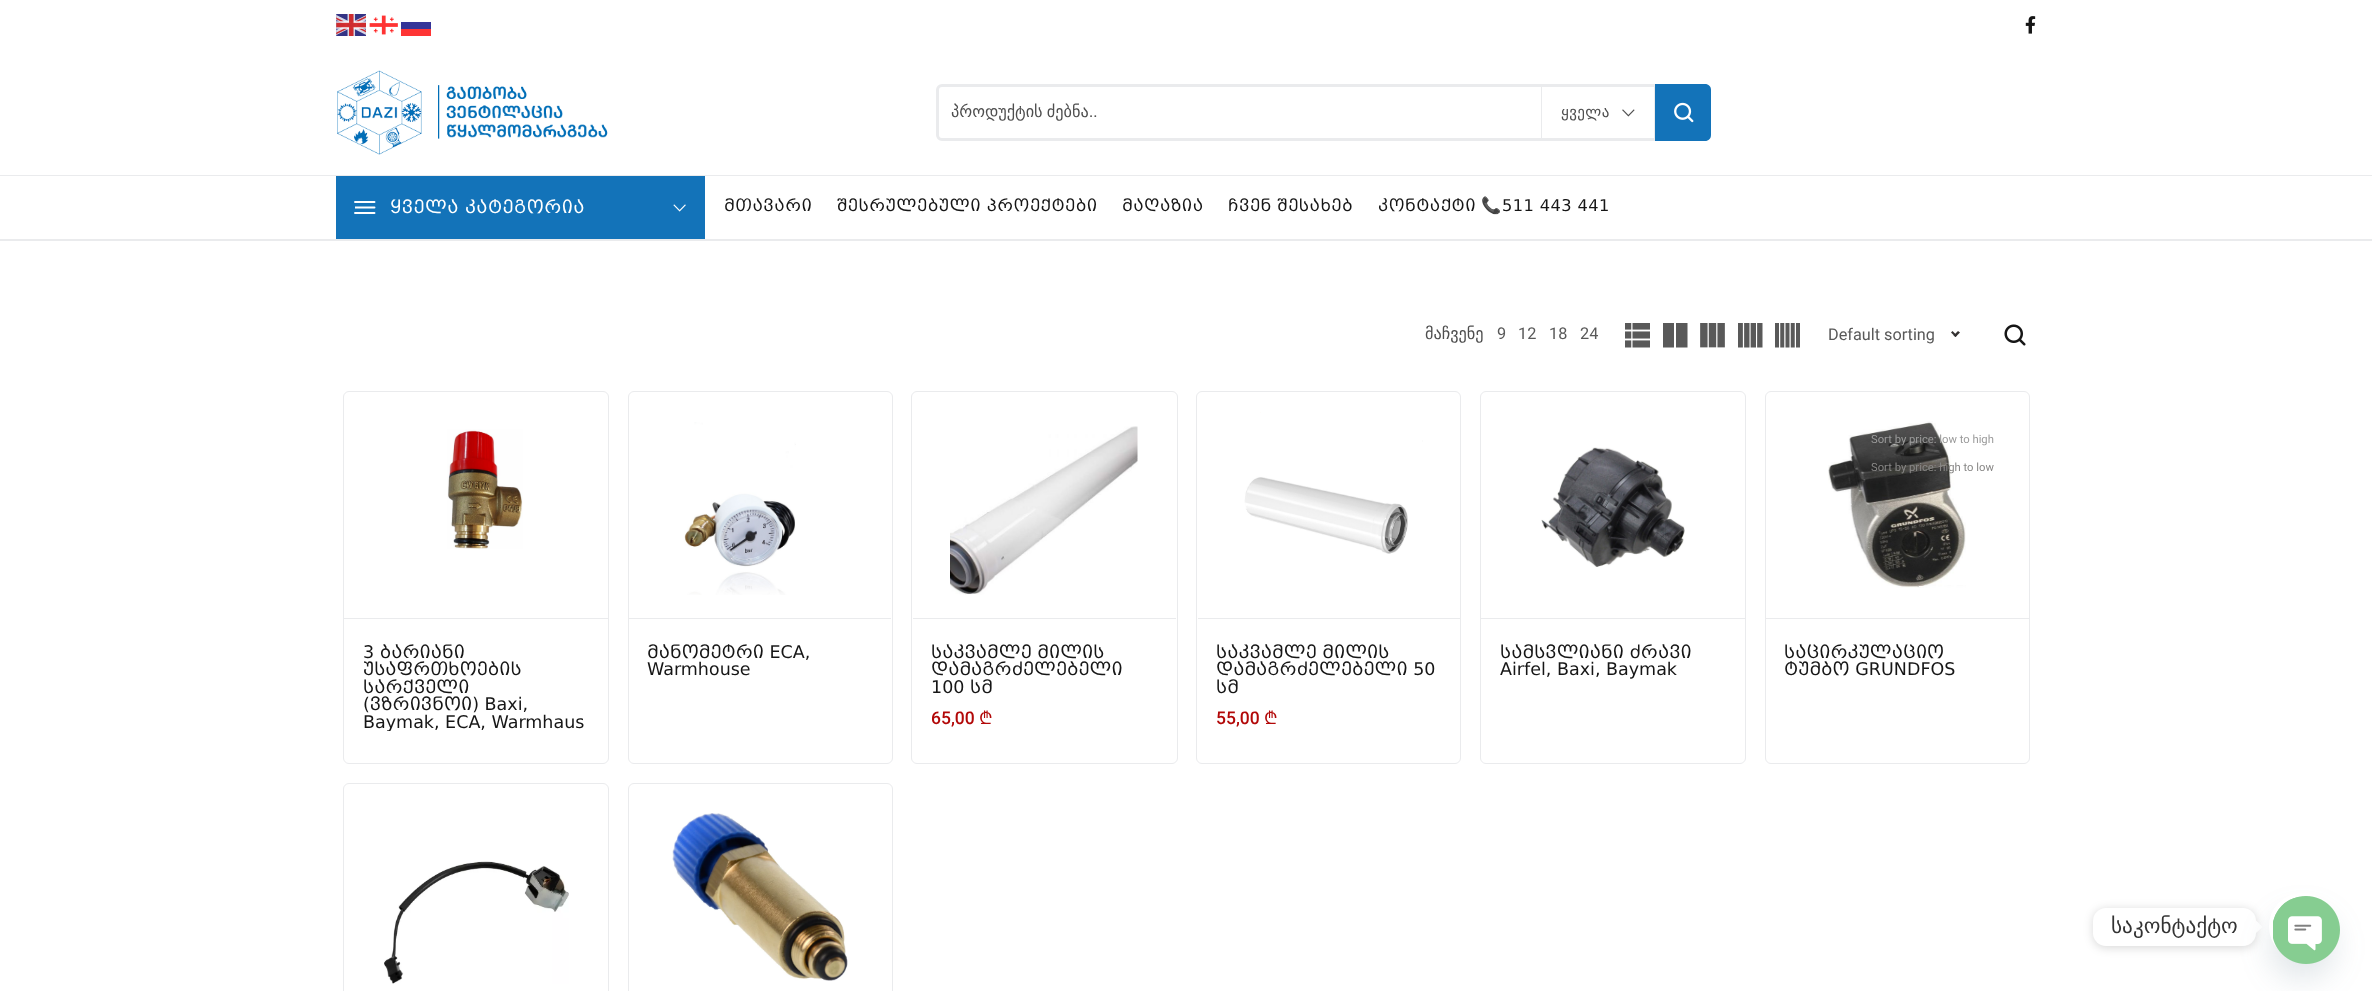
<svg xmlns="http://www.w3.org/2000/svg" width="2372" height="991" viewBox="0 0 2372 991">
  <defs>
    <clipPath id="clip1"><path d="M355 196h23v23H355z"/></clipPath>
    <clipPath id="clip2"><path d="M1663 323h25v25H1663z"/></clipPath>
    <clipPath id="clip3"><path d="M363 638h226v93H363z"/></clipPath>
  </defs>
  <rect width="100%" height="100%" fill="#fff"/>
  <path d="M0 239h2372v2H0z" fill="#eaebed"/>
  <image x="336" y="14" width="30" height="22" href="img/1.png"/>
  <image x="369" y="15" width="29" height="20" href="img/2.png"/>
  <path d="M401 22h30v7H401z" fill="#343498"/>
  <path d="M401 29h30v7H401z" fill="#fe3434"/>
  <image x="2025" y="16" width="11" height="18" href="img/3.png"/>
  <image x="337" y="70" width="271" height="85" href="img/4.png"/>
  <rect x="937.5" y="85.5" width="772" height="54" rx="4.5" fill="none" stroke="#eaebed" stroke-width="3"/>
  <path d="M1654 86h1v53H1654z" fill="#eaebed"/>
  <path d="M1541 86h1v53H1541z" fill="#eaebed"/>
  <image x="1622" y="109" width="13" height="8" href="img/5.png"/>
  <path d="M1655 84H1705C1708.5 84 1711 86.5 1711 90V135C1711 138.5 1708.5 141 1705 141H1655Z" fill="#1373b9"/>
  <image x="1674" y="102" width="20" height="21" href="img/6.png"/>
  <path d="M0 175h2372v1H0z" fill="#eaebed"/>
  <path d="M336 176h369v63H336z" fill="#1373b9"/>
  <g clip-path="url(#clip1)">
    <path d="M355 207.5H374.5" fill="none" stroke="#fff" stroke-width="1.9" stroke-linecap="round" stroke-linejoin="round"/>
  </g>
  <path d="M355 202H374.5M355 213H374.5" fill="none" stroke="#fff" stroke-width="1.9" stroke-linecap="round" stroke-linejoin="round"/>
  <image x="673" y="204" width="13" height="8" href="img/7.png"/>
  <image x="1625" y="323" width="25" height="25" href="img/8.png"/>
  <g clip-path="url(#clip2)">
    <path d="M1687.5 347.5H1676V322.5H1687.5ZM1674 322.5H1662.5V347.5H1674Z" fill="#595959"/>
  </g>
  <image x="1700" y="323" width="25" height="25" href="img/9.png"/>
  <image x="1738" y="323" width="25" height="25" href="img/10.png"/>
  <image x="1775" y="323" width="25" height="25" href="img/11.png"/>
  <path d="M1958 331L1960 332.5L1955.5 337L1953.5 335.5Z" fill="#343131"/>
  <path d="M1952.5 331L1957 335.5L1955.5 337L1951 332.5Z" fill="#343131"/>
  <image x="2004" y="324" width="22" height="22" href="img/12.png"/>
  <rect x="343.5" y="391.5" width="265" height="372" rx="5.5" fill="none" stroke="#eaebed"/>
  <image x="447" y="429" width="76" height="120" href="img/13.png"/>
  <path d="M344 618h264v1H344z" fill="#eaebed"/>
  <rect x="628.5" y="391.5" width="264" height="372" rx="5.5" fill="none" stroke="#eaebed"/>
  <image x="684" y="422" width="112" height="173" href="img/14.png"/>
  <path d="M629 618h262v1H629z" fill="#eaebed"/>
  <rect x="911.5" y="391.5" width="266" height="372" rx="5.5" fill="none" stroke="#eaebed"/>
  <image x="950" y="426" width="188" height="169" href="img/15.png"/>
  <path d="M913 618h263v1H913z" fill="#eaebed"/>
  <rect x="1196.5" y="391.5" width="264" height="372" rx="5.5" fill="none" stroke="#eaebed"/>
  <image x="1244" y="412" width="179" height="142" href="img/16.png"/>
  <path d="M1198 618h262v1H1198z" fill="#eaebed"/>
  <rect x="1480.5" y="391.5" width="265" height="372" rx="5.5" fill="none" stroke="#eaebed"/>
  <image x="1541" y="447" width="144" height="120" href="img/17.png"/>
  <path d="M1481 618h264v1H1481z" fill="#eaebed"/>
  <rect x="1765.5" y="391.5" width="264" height="372" rx="5.5" fill="none" stroke="#eaebed"/>
  <image x="1828" y="421" width="138" height="167" href="img/18.png"/>
  <path d="M1766 618h263v1H1766z" fill="#eaebed"/>
  <rect x="343.5" y="783.5" width="265" height="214" rx="5.5" fill="none" stroke="#eaebed"/>
  <image x="384" y="861" width="185" height="123" href="img/19.png"/>
  <rect x="628.5" y="783.5" width="264" height="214" rx="5.5" fill="none" stroke="#eaebed"/>
  <image x="672" y="813" width="176" height="168" href="img/20.png"/>
  <rect x="2093" y="909" width="163" height="39" rx="13" fill="#00000026" filter="blur(5px)"/>
  <rect x="2093" y="908" width="163" height="38" rx="13" fill="#fff"/>
  <path d="M2256 933V920.5L2262.5 927Z" fill="#fff"/>
  <rect x="2269" y="913" width="67" height="67" rx="33.5" fill="#49687e29" filter="blur(15px)"/>
  <circle cx="2302.5" cy="926.5" r="31.5" fill="#86cd91" stroke="#fff" stroke-width="4"/>
  <image x="2273" y="896" width="67" height="68" href="img/21.png"/>
  <text x="951" y="117" word-spacing="-1" font-family="DejaVu Sans" font-size="16.25" fill="#4e4e4e">პროდუქტის ძებნა</text>
  <text x="1089" y="117" font-family="Roboto" font-size="16.25" fill="#4e4e4e">..</text>
  <text x="1561" y="117" font-family="DejaVu Sans" font-size="15" letter-spacing="0.4" fill="#4e4e4e">ყველა</text>
  <text x="390" y="213" font-family="'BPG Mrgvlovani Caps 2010'" font-size="17.5" letter-spacing="0.4" fill="#fff">ყველა კატეგორია</text>
  <g font-family="'BPG Mrgvlovani Caps 2010'" font-size="16.25" letter-spacing="0.4" fill="#161616">
    <text x="724" y="211">მთავარი</text>
    <text x="837" y="211">შესრულებული პროექტები</text>
    <text x="1122" y="211">მაღაზია</text>
    <text x="1228" y="211">ჩვენ შესახებ</text>
    <text x="1378" y="211">კონტაქტი</text>
  </g>
  <text x="1481" y="211" font-family="Noto Color Emoji" font-size="16.25" letter-spacing="0.4" fill="#161616">📞</text>
  <text x="1502" y="211" font-family="'BPG Mrgvlovani Caps 2010'" font-size="16.25" letter-spacing="0.4" fill="#161616">511 443 441</text>
  <text x="1425" y="339" font-family="DejaVu Sans" font-size="16.25" fill="#4e4e4e">მაჩვენე</text>
  <g font-family="Roboto" font-size="16.25" fill="#595959">
    <text x="1497" y="339">9</text>
    <text x="1518" y="339">12</text>
    <text x="1549" y="339">18</text>
    <text x="1580" y="339">24</text>
    <text x="1828" y="340">Default sorting</text>
  </g>
  <text x="1871" y="443" font-family="Roboto" font-size="11.25" fill="#9b9b9b">Sort by price: low to high</text>
  <text x="1871" y="471" font-family="Roboto" font-size="11.25" fill="#888786">Sort by price: high to low</text>
  <g font-family="'BPG Mrgvlovani Caps 2010'" font-size="17.5" fill="#161616">
    <text x="363" y="658">3 ბარიანი</text>
    <text x="363" y="675">უსაფრთხოების</text>
    <text x="363" y="693">სარქველი</text>
    <text x="363" y="710">(ვზრივნოი) Baxi,</text>
  </g>
  <g clip-path="url(#clip3)">
    <text x="363" y="728" font-family="'BPG Mrgvlovani Caps 2010'" font-size="17.5" fill="#161616">Baymak, ECA, Warmhaus</text>
  </g>
  <g font-family="'BPG Mrgvlovani Caps 2010'" font-size="17.5" fill="#161616">
    <text x="647" y="658">მანომეტრი ECA,</text>
    <text x="647" y="675">Warmhouse</text>
    <text x="931" y="658">საკვამლე მილის</text>
    <text x="931" y="675">დამაგრძელებელი</text>
    <text x="931" y="693">100 სმ</text>
  </g>
  <text x="931" y="724" font-family="Roboto" font-size="17.5" font-weight="500" fill="#b20808">65,00</text>
  <text x="979" y="724" font-family="Noto Sans" font-size="17.5" fill="#b20808">₾</text>
  <g font-family="'BPG Mrgvlovani Caps 2010'" font-size="17.5" fill="#161616">
    <text x="1216" y="658">საკვამლე მილის</text>
    <text x="1216" y="675">დამაგრძელებელი 50</text>
    <text x="1216" y="693">სმ</text>
  </g>
  <text x="1216" y="724" font-family="Roboto" font-size="17.5" font-weight="500" fill="#b20808">55,00</text>
  <text x="1264" y="724" font-family="Noto Sans" font-size="17.5" fill="#b20808">₾</text>
  <g font-family="'BPG Mrgvlovani Caps 2010'" font-size="17.5" fill="#161616">
    <text x="1500" y="658">სამსვლიანი ძრავი</text>
    <text x="1500" y="675">Airfel, Baxi, Baymak</text>
    <text x="1784" y="658">საცირკულაციო</text>
    <text x="1784" y="675">ტუმბო GRUNDFOS</text>
  </g>
  <text x="2111" y="933" font-family="DejaVu Sans" font-size="21.25" fill="#333">საკონტაქტო</text>
</svg>
